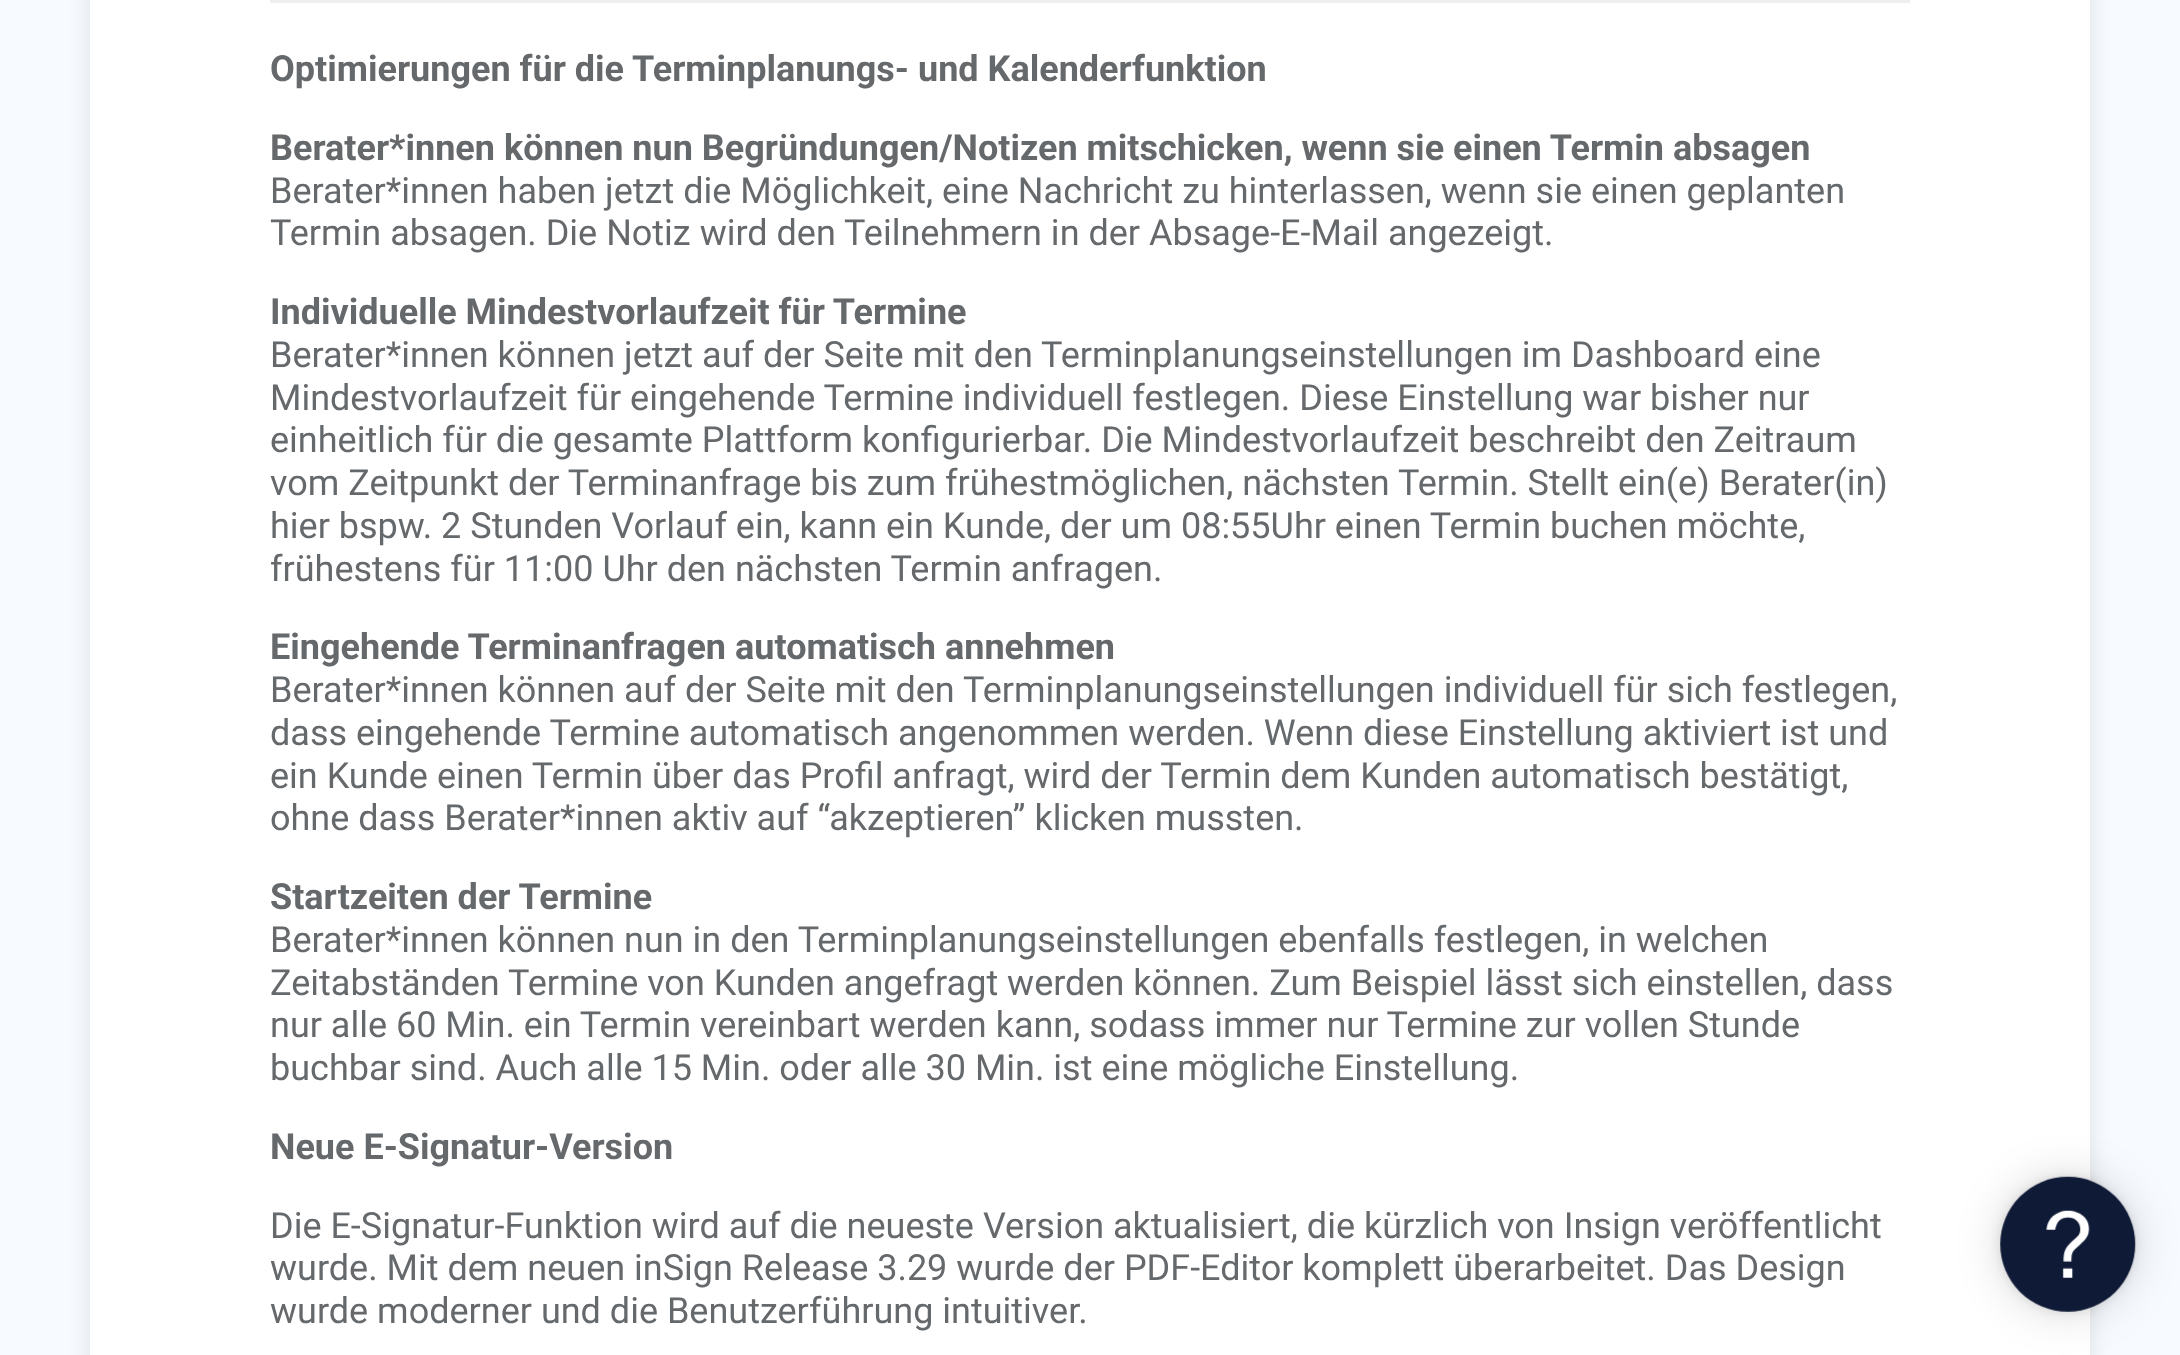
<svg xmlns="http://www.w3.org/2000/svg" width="2180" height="1355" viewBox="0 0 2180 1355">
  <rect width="100%" height="100%" fill="#f7fafe"/>
  <rect x="90" y="-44" width="2000" height="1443" rx="11" fill="#0000001a" filter="blur(11px)"/>
  <path d="M90 0h2000v1355H90z" fill="#fff"/>
  <path d="M270 0h1640v3H270z" fill="#eee"/>
  <rect x="2000" y="1177" width="135" height="135" rx="67.5" fill="#00000026" filter="blur(22.5px)"/>
  <rect x="2000" y="1177" width="135" height="135" rx="67.5" fill="#0000001a" filter="blur(5.5px)"/>
  <image x="2000" y="1176" width="136" height="136" href="img/1.png"/>
  <g font-family="Roboto" font-size="36" font-weight="bold" fill="#66696c">
    <text x="270" y="81">Optimierungen für die Terminplanungs- und Kalenderfunktion</text>
    <text x="270" y="160">Berater*innen können nun Begründungen/Notizen mitschicken, wenn sie einen Termin absagen</text>
  </g>
  <g font-family="Roboto" font-size="36" fill="#66696c">
    <text x="270" y="203">Berater*innen haben jetzt die Möglichkeit, eine Nachricht zu hinterlassen, wenn sie einen geplanten</text>
    <text x="270" y="245">Termin absagen. Die Notiz wird den Teilnehmern in der Absage-E-Mail angezeigt.</text>
  </g>
  <text x="270" y="324" font-family="Roboto" font-size="36" font-weight="bold" fill="#66696c">Individuelle Mindestvorlaufzeit für Termine</text>
  <g font-family="Roboto" font-size="36" fill="#66696c">
    <text x="270" y="367">Berater*innen können jetzt auf der Seite mit den Terminplanungseinstellungen im Dashboard eine</text>
    <text x="270" y="410">Mindestvorlaufzeit für eingehende Termine individuell festlegen. Diese Einstellung war bisher nur</text>
    <text x="270" y="452">einheitlich für die gesamte Plattform konfigurierbar. Die Mindestvorlaufzeit beschreibt den Zeitraum</text>
    <text x="270" y="495">vom Zeitpunkt der Terminanfrage bis zum frühestmöglichen, nächsten Termin. Stellt ein(e) Berater(in)</text>
    <text x="270" y="538">hier bspw. 2 Stunden Vorlauf ein, kann ein Kunde, der um 08:55Uhr einen Termin buchen möchte,</text>
    <text x="270" y="581">frühestens für 11:00 Uhr den nächsten Termin anfragen.</text>
  </g>
  <text x="270" y="659" font-family="Roboto" font-size="36" font-weight="bold" fill="#66696c">Eingehende Terminanfragen automatisch annehmen</text>
  <g font-family="Roboto" font-size="36" fill="#66696c">
    <text x="270" y="702">Berater*innen können auf der Seite mit den Terminplanungseinstellungen individuell für sich festlegen,</text>
    <text x="270" y="745">dass eingehende Termine automatisch angenommen werden. Wenn diese Einstellung aktiviert ist und</text>
    <text x="270" y="788">ein Kunde einen Termin über das Profil anfragt, wird der Termin dem Kunden automatisch bestätigt,</text>
    <text x="270" y="830">ohne dass Berater*innen aktiv auf “akzeptieren” klicken mussten.</text>
  </g>
  <text x="270" y="909" font-family="Roboto" font-size="36" font-weight="bold" fill="#66696c">Startzeiten der Termine</text>
  <g font-family="Roboto" font-size="36" fill="#66696c">
    <text x="270" y="952">Berater*innen können nun in den Terminplanungseinstellungen ebenfalls festlegen, in welchen</text>
    <text x="270" y="995">Zeitabständen Termine von Kunden angefragt werden können. Zum Beispiel lässt sich einstellen, dass</text>
    <text x="270" y="1037">nur alle 60 Min. ein Termin vereinbart werden kann, sodass immer nur Termine zur vollen Stunde</text>
    <text x="270" y="1080">buchbar sind. Auch alle 15 Min. oder alle 30 Min. ist eine mögliche Einstellung.</text>
  </g>
  <text x="270" y="1159" font-family="Roboto" font-size="36" font-weight="bold" fill="#66696c">Neue E-Signatur-Version</text>
  <g font-family="Roboto" font-size="36" fill="#66696c">
    <text x="270" y="1238">Die E-Signatur-Funktion wird auf die neueste Version aktualisiert, die kürzlich von Insign veröffentlicht</text>
    <text x="270" y="1280">wurde. Mit dem neuen inSign Release 3.29 wurde der PDF-Editor komplett überarbeitet. Das Design</text>
    <text x="270" y="1323">wurde moderner und die Benutzerführung intuitiver.</text>
  </g>
</svg>
